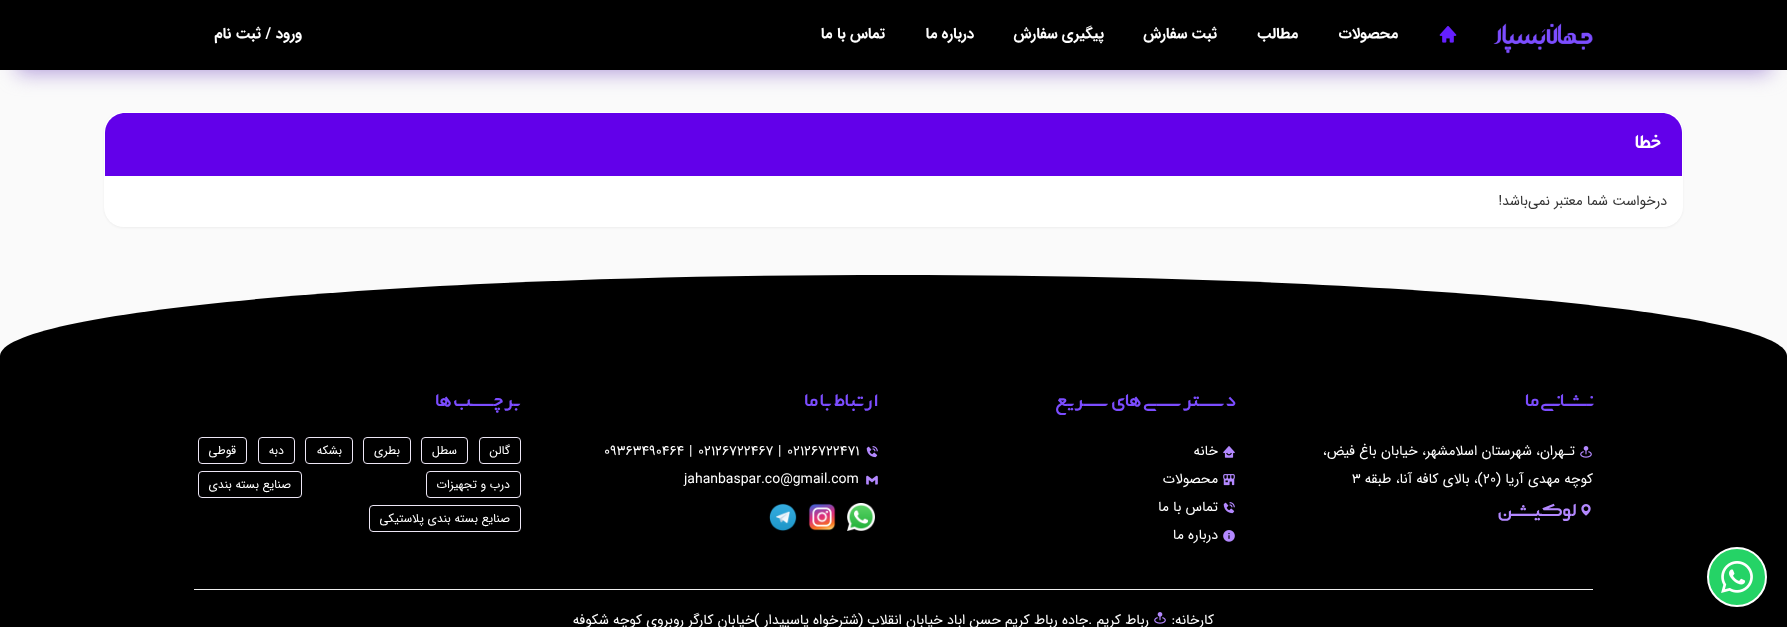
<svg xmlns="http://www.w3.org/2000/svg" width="1787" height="627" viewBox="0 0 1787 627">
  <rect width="100%" height="100%" fill="#fafafa"/>
  <path d="M17 30h1753v43H17z" fill="#b39ddb" filter="blur(10px)"/>
  <path d="M0 0h1787v70H0z" fill="#000"/>
  <image x="1493" y="23" width="100" height="31" href="img/1.png"/>
  <image x="1439" y="26" width="18" height="17" href="img/2.png"/>
  <rect x="104" y="113" width="1579" height="115" rx="20" fill="#0000000d" filter="blur(1px)"/>
  <rect x="104" y="112" width="1579" height="115" rx="20" fill="#fff"/>
  <path d="M125 113H1662C1673 113 1682 122 1682 133V176H105V133C105 122 114 113 125 113Z" fill="#6200ea"/>
  <path d="M894 275C1387 275 1787 311 1787 356V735H0V356C0 311 400 275 894 275Z" fill="#000"/>
  <circle cx="1737" cy="577" r="29" fill="#25d366" stroke="#fff" stroke-width="2"/>
  <image x="1721" y="561" width="32" height="32" href="img/3.png"/>
  <image x="1580" y="446" width="12" height="12" href="img/4.png"/>
  <image x="1581" y="504" width="10" height="12" href="img/5.png"/>
  <image x="1223" y="446" width="12" height="12" href="img/6.png"/>
  <image x="1223" y="474" width="12" height="12" href="img/7.png"/>
  <image x="1223" y="502" width="12" height="12" href="img/8.png"/>
  <image x="1223" y="530" width="12" height="12" href="img/9.png"/>
  <image x="866" y="446" width="12" height="12" href="img/8.png"/>
  <image x="866" y="475" width="12" height="10" href="img/10.png"/>
  <image x="847" y="503" width="28" height="28" href="img/11.png"/>
  <image x="808" y="503" width="28" height="28" href="img/12.png"/>
  <image x="769" y="503" width="28" height="28" href="img/13.png"/>
  <rect x="479.5" y="437.5" width="41" height="26" rx="3.5" fill="none" stroke="#ede7f6"/>
  <rect x="421.5" y="437.5" width="46" height="26" rx="3.5" fill="none" stroke="#ede7f6"/>
  <rect x="363.5" y="437.5" width="47" height="26" rx="3.5" fill="none" stroke="#ede7f6"/>
  <rect x="305.5" y="437.5" width="47" height="26" rx="3.5" fill="none" stroke="#ede7f6"/>
  <rect x="258.5" y="437.5" width="36" height="26" rx="3.5" fill="none" stroke="#ede7f6"/>
  <rect x="198.5" y="437.5" width="48" height="26" rx="3.5" fill="none" stroke="#ede7f6"/>
  <rect x="426.5" y="471.5" width="94" height="26" rx="3.5" fill="none" stroke="#ede7f6"/>
  <rect x="198.5" y="471.5" width="103" height="26" rx="3.5" fill="none" stroke="#ede7f6"/>
  <rect x="369.5" y="505.5" width="151" height="26" rx="3.5" fill="none" stroke="#ede7f6"/>
  <path d="M194 589h1399v1H194z" fill="#eee"/>
  <image x="1154" y="612" width="12" height="12" href="img/4.png"/>
  <g font-family="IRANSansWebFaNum" font-size="15" font-weight="bold" direction="rtl" fill="#fff">
    <text x="1398" y="38">محصولات</text>
    <text x="1298" y="38">مطالب</text>
    <text x="1217" y="38">ثبت سفارش</text>
    <text x="1104" y="38">پیگیری سفارش</text>
    <text x="974" y="38">درباره ما</text>
    <text x="885" y="38">تماس با ما</text>
    <text x="302" y="38">ورود / ثبت نام</text>
  </g>
  <text x="1662" y="148" font-family="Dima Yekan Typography" font-size="15" font-weight="bold" direction="rtl" fill="#fff">خطا</text>
  <text x="1667" y="205" font-family="IRANSansWebFaNum" font-size="14" direction="rtl" fill="#333">درخواست شما معتبر نمی‌باشد!</text>
  <text x="1593" y="406" font-family="Dima Yekan Typography" font-size="14" font-weight="bold" direction="rtl" fill="#7c4dff">نشانی ما</text>
  <g font-family="IRANSansWebFaNum" font-size="14" direction="rtl" fill="#fff">
    <text x="1575" y="455">تـهران، شهرستان اسلامشهر، خیابان باغ فیض،</text>
    <text x="1593" y="483">کوچه مهدی آریا (</text>
  </g>
  <text x="1483" y="483" font-family="IRANSansWebFaNum" font-size="14" fill="#fff">۲۰</text>
  <text x="1483" y="483" font-family="IRANSansWebFaNum" font-size="14" direction="rtl" fill="#fff">)، بالای کافه آنا، طبقه</text>
  <text x="1352" y="483" font-family="IRANSansWebFaNum" font-size="14" fill="#fff">۳</text>
  <text x="1577" y="516" font-family="Dima Yekan Typography" font-size="14" font-weight="bold" direction="rtl" fill="#b388ff">لوکیشن</text>
  <text x="1236" y="406" font-family="Dima Yekan Typography" font-size="14" font-weight="bold" direction="rtl" fill="#7c4dff">دسترسی های سریع</text>
  <g font-family="IRANSansWebFaNum" font-size="14" direction="rtl" fill="#fff">
    <text x="1218" y="455">خانه</text>
    <text x="1218" y="483">محصولات</text>
    <text x="1218" y="511">تماس با ما</text>
    <text x="1218" y="539">درباره ما</text>
  </g>
  <text x="879" y="406" font-family="Dima Yekan Typography" font-size="14" font-weight="bold" direction="rtl" fill="#7c4dff">ارتباط با ما</text>
  <g font-family="IRANSansWebFaNum" font-size="14" fill="#fff">
    <text x="787" y="455">02126722471</text>
    <text x="778" y="455">|</text>
    <text x="698" y="455">02126722467</text>
    <text x="689" y="455">|</text>
    <text x="604" y="455">09363490464</text>
    <text x="684" y="483">jahanbaspar.co@gmail.com</text>
  </g>
  <text x="521" y="406" font-family="Dima Yekan Typography" font-size="14" font-weight="bold" direction="rtl" fill="#7c4dff">برچسب ها</text>
  <g font-family="IRANSansWebFaNum" font-size="12" direction="rtl" fill="#fff">
    <text x="510" y="454">گالن</text>
    <text x="457" y="454">سطل</text>
    <text x="400" y="454">بطری</text>
    <text x="342" y="454">بشکه</text>
    <text x="284" y="454">دبه</text>
    <text x="236" y="454">قوطی</text>
    <text x="510" y="488">درب و تجهیزات</text>
    <text x="291" y="488">صنایع بسته بندی</text>
    <text x="510" y="522">صنایع بسته بندی پلاستیکی</text>
  </g>
  <g font-family="IRANSansWebFaNum" font-size="14" direction="rtl" fill="#fff">
    <text x="1214" y="624">کارخانه:</text>
    <text x="1149" y="624">رباط کریم .جاده رباط کریم حسن اباد خیابان انقلاب (شترخواه یاسپیدار )خیابان کارگر روبروی کوچه شکوفه</text>
  </g>
</svg>
